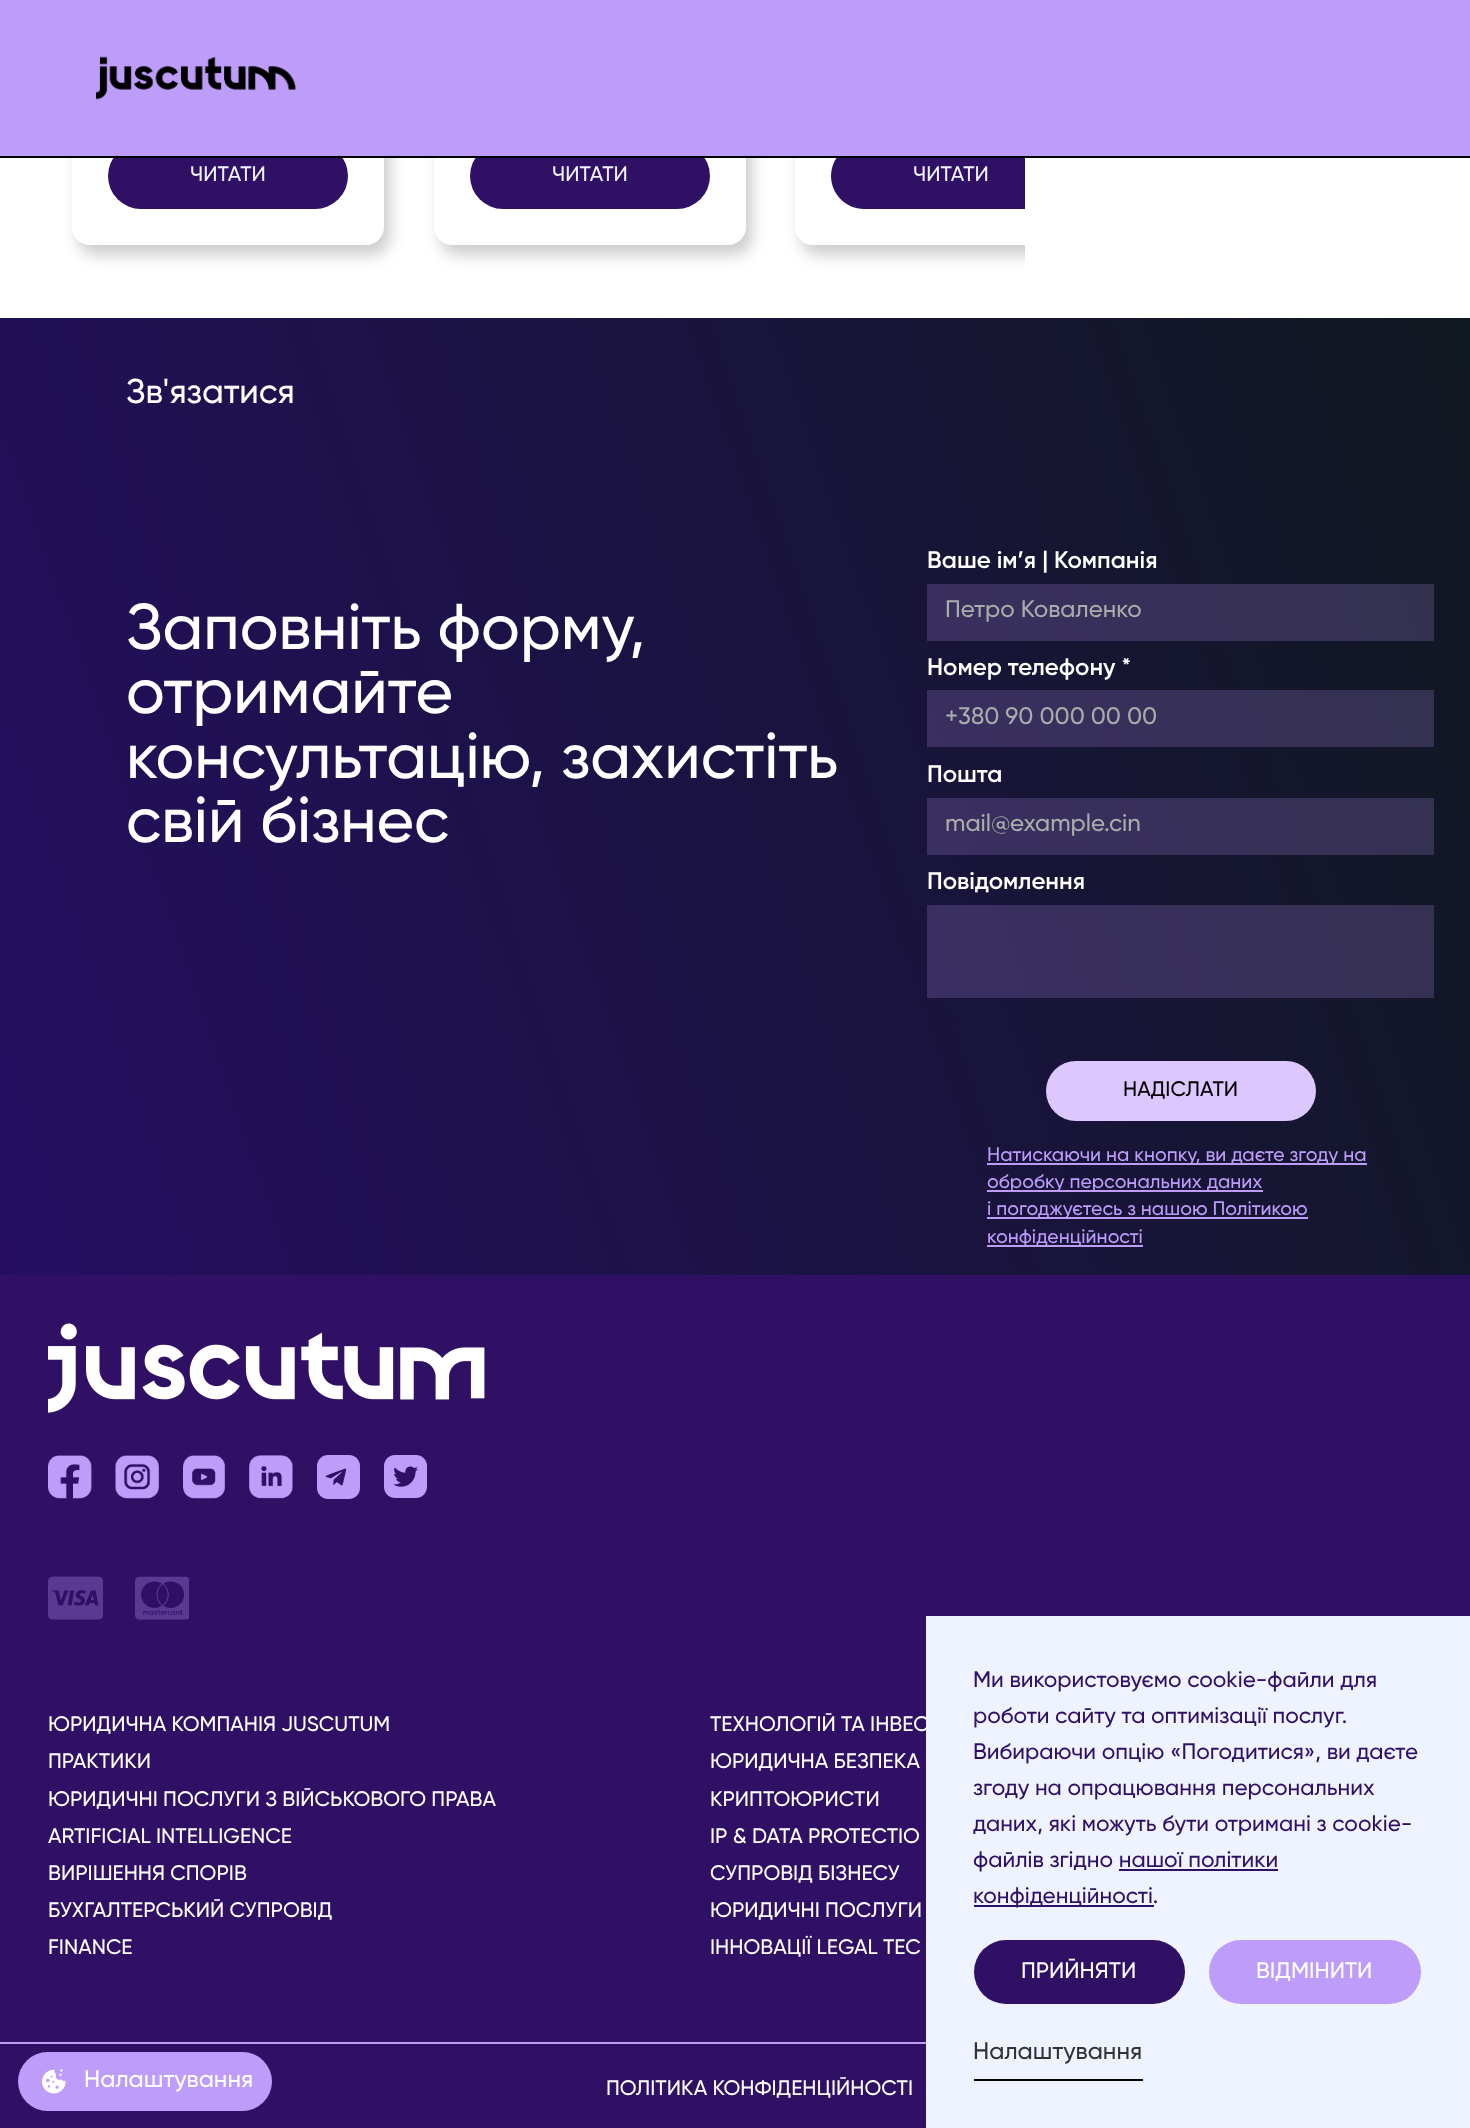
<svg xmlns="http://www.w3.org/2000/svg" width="1470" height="2128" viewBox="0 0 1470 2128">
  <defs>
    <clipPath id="clip1"><path d="M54 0H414V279H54ZM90-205H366C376-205 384-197 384-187V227C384 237 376 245 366 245H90C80 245 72 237 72 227V-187C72-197 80-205 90-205Z" clip-rule="evenodd"/></clipPath>
    <clipPath id="clip2"><path d="M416 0H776V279H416ZM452-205H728C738-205 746-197 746-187V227C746 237 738 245 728 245H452C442 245 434 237 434 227V-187C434-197 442-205 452-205Z" clip-rule="evenodd"/></clipPath>
    <clipPath id="clip3"><path d="M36 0h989v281H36z"/></clipPath>
    <clipPath id="clip4"><path d="M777 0H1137V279H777ZM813-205H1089C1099-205 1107-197 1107-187V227C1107 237 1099 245 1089 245H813C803 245 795 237 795 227V-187C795-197 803-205 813-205Z" clip-rule="evenodd"/></clipPath>
    <linearGradient id="g1" gradientUnits="userSpaceOnUse" x1="-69" y1="1073" x2="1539" y2="520"><stop offset="0" stop-color="#250e62"/><stop offset="1" stop-color="#101820"/></linearGradient>
    <linearGradient id="g2" gradientUnits="userSpaceOnUse" x1="-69" y1="1073" x2="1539" y2="520"><stop offset="0" stop-color="#442a80"/><stop offset="1" stop-color="#33324c"/></linearGradient>
  </defs>
  <rect width="100%" height="100%" fill="#fff"/>
  <g clip-path="url(#clip1)">
    <rect x="78" y="-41" width="312" height="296" rx="18" fill="#00000033" filter="blur(7.5px)"/>
  </g>
  <rect x="72" y="-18" width="312" height="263" rx="18" fill="#ffffff33"/>
  <rect x="108" y="143" width="240" height="66" rx="33" fill="#2f1065"/>
  <g clip-path="url(#clip2)">
    <rect x="440" y="-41" width="312" height="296" rx="18" fill="#00000033" filter="blur(7.5px)"/>
  </g>
  <rect x="434" y="-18" width="312" height="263" rx="18" fill="#ffffff33"/>
  <rect x="470" y="143" width="240" height="66" rx="33" fill="#2f1065"/>
  <g clip-path="url(#clip3)">
    <g clip-path="url(#clip4)">
      <rect x="801" y="-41" width="312" height="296" rx="18" fill="#00000033" filter="blur(7.5px)"/>
    </g>
  </g>
  <path d="M813-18H1025V245H813C803 245 795 237 795 227V0C795-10 803-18 813-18Z" fill="#ffffff33"/>
  <path d="M864 143H1025V209H864C846 209 831 194 831 176C831 158 846 143 864 143Z" fill="#2f1065"/>
  <path d="M0 0h1470v156H0z" fill="#be9cfa"/>
  <path d="M0 156h1470v2H0z" fill="#000"/>
  <image x="96" y="56" width="200" height="44" href="img/1.png"/>
  <path d="M0 318h1470v957H0z" fill="url(#g1)"/>
  <path d="M927 905h507v93H927z" fill="url(#g2)"/>
  <path d="M927 798h507v57H927z" fill="url(#g2)"/>
  <path d="M927 690h507v57H927z" fill="url(#g2)"/>
  <path d="M927 584h507v57H927z" fill="url(#g2)"/>
  <rect x="1046" y="1061" width="270" height="60" rx="30" fill="#dcc7ff"/>
  <path d="M987 1163h380v2H987z" fill="#be9cfa"/>
  <path d="M987 1190h276v2H987z" fill="#be9cfa"/>
  <path d="M987 1217h321v2H987z" fill="#be9cfa"/>
  <path d="M987 1245h156v2H987z" fill="#be9cfa"/>
  <path d="M0 1275h1470v853H0z" fill="#2f1065"/>
  <rect x="18" y="2052" width="254" height="59" rx="29.5" fill="#be9cfa"/>
  <image x="42" y="2069" width="24" height="25" href="img/2.png"/>
  <image x="48" y="1323" width="437" height="90" href="img/3.png"/>
  <image x="48" y="1455" width="44" height="44" href="img/4.png"/>
  <image x="115" y="1455" width="44" height="44" href="img/5.png"/>
  <image x="183" y="1455" width="42" height="44" href="img/6.png"/>
  <image x="249" y="1455" width="44" height="44" href="img/7.png"/>
  <image x="317" y="1455" width="43" height="44" href="img/8.png"/>
  <image x="384" y="1455" width="43" height="43" href="img/9.png"/>
  <image x="48" y="1576" width="55" height="44" href="img/10.png"/>
  <image x="135" y="1576" width="54" height="44" href="img/11.png"/>
  <path d="M0 2042h926v2H0z" fill="#be9cfa"/>
  <g font-family="Gilroy" font-size="21" font-weight="500" fill="#eff2ff">
    <text x="190" y="181">ЧИТАТИ</text>
    <text x="552" y="181">ЧИТАТИ</text>
    <text x="913" y="181">ЧИТАТИ</text>
  </g>
  <text x="126" y="403" font-family="Gilroy" font-size="34.5" font-weight="500" fill="#fff">Зв'язатися</text>
  <g font-family="Gilroy" font-size="64.5" font-weight="500" fill="#fff">
    <text x="126" y="649">Заповніть форму,</text>
    <text x="126" y="713">отримайте</text>
    <text x="126" y="778">консультацію, захистіть</text>
    <text x="126" y="842">свій бізнес</text>
  </g>
  <text x="927" y="568" font-family="Gilroy" font-size="24" font-weight="600" fill="#fff">Ваше ім’я | Компанія</text>
  <text x="945" y="617" font-family="Gilroy" font-size="24" font-weight="500" fill="#ababab">Петро Коваленко</text>
  <text x="927" y="675" font-family="Gilroy" font-size="24" font-weight="600" fill="#fff">Номер телефону *</text>
  <text x="945" y="724" font-family="Gilroy" font-size="24" font-weight="500" fill="#ababab">+380 90 000 00 00</text>
  <text x="927" y="782" font-family="Gilroy" font-size="24" font-weight="600" fill="#fff">Пошта</text>
  <text x="945" y="831" font-family="Gilroy" font-size="24" font-weight="500" fill="#ababab">mail@example.cin</text>
  <text x="927" y="889" font-family="Gilroy" font-size="24" font-weight="600" fill="#fff">Повідомлення</text>
  <text x="1123" y="1096" font-family="Gilroy" font-size="21" font-weight="500" fill="#000">НАДІСЛАТИ</text>
  <g font-family="Gilroy" font-size="19.5" font-weight="500" fill="#be9cfa">
    <text x="987" y="1161">Натискаючи на кнопку, ви даєте згоду на</text>
    <text x="987" y="1188">обробку персональних даних</text>
    <text x="987" y="1215">і погоджуєтесь з нашою Політикою</text>
    <text x="987" y="1243">конфіденційності</text>
  </g>
  <text x="84" y="2087" font-family="Gilroy" font-size="24" font-weight="500" fill="#fff">Налаштування</text>
  <g font-family="Gilroy" font-size="21" font-weight="500" fill="#fff">
    <text x="48" y="1731">ЮРИДИЧНА КОМПАНІЯ JUSCUTUM</text>
    <text x="710" y="1731">ТЕХНОЛОГІЙ ТА ІНВЕС</text>
  </g>
  <path d="M926 1616h544v512H926z" fill="#eff2ff"/>
  <text x="973" y="2059" font-family="Gilroy" font-size="24" font-weight="500" fill="#333">Налаштування</text>
  <path d="M974 2079h169v2H974z" fill="#000"/>
  <rect x="1209" y="1940" width="212" height="64" rx="32" fill="#be9cfa"/>
  <text x="1256" y="1978" font-family="Gilroy" font-size="22.5" font-weight="500" fill="#fff">ВІДМІНИТИ</text>
  <rect x="974" y="1940" width="211" height="64" rx="32" fill="#2f1065"/>
  <text x="1021" y="1978" font-family="Gilroy" font-size="22.5" font-weight="500" fill="#fff">ПРИЙНЯТИ</text>
  <path d="M974 1905h180v2H974z" fill="#2f1065"/>
  <text x="973" y="1903" font-family="Gilroy" font-size="22.5" font-weight="500" fill="#2f1065">конфіденційності.</text>
  <path d="M1119 1869h159v2H1119z" fill="#2f1065"/>
  <g font-family="Gilroy" font-size="22.5" font-weight="500" fill="#2f1065">
    <text x="973" y="1867">файлів згідно нашої політики</text>
    <text x="973" y="1831">даних, які можуть бути отримані з cookie-</text>
    <text x="973" y="1795">згоду на опрацювання персональних</text>
    <text x="973" y="1759">Вибираючи опцію «Погодитися», ви даєте</text>
    <text x="973" y="1723">роботи сайту та оптимізації послуг.</text>
    <text x="973" y="1687">Ми використовуємо cookie-файли для</text>
  </g>
  <g font-family="Gilroy" font-size="21" font-weight="500" fill="#fff">
    <text x="48" y="1768">ПРАКТИКИ</text>
    <text x="710" y="1768">ЮРИДИЧНА БЕЗПЕКА</text>
    <text x="48" y="1806">ЮРИДИЧНІ ПОСЛУГИ З ВІЙСЬКОВОГО ПРАВА</text>
    <text x="710" y="1806">КРИПТОЮРИСТИ</text>
    <text x="48" y="1843">АRTIFICIAL ІNTELLIGENCE</text>
    <text x="710" y="1843">IP &amp; DATA PROTECTIO</text>
    <text x="48" y="1880">ВИРІШЕННЯ СПОРІВ</text>
    <text x="710" y="1880">СУПРОВІД БІЗНЕСУ</text>
    <text x="48" y="1917">БУХГАЛТЕРСЬКИЙ СУПРОВІД</text>
    <text x="710" y="1917">ЮРИДИЧНІ ПОСЛУГИ</text>
    <text x="48" y="1954">FINANCE</text>
    <text x="710" y="1954">ІННОВАЦІЇ LEGAL TEC</text>
    <text x="606" y="2095">ПОЛІТИКА КОНФІДЕНЦІЙНОСТІ</text>
  </g>
</svg>
